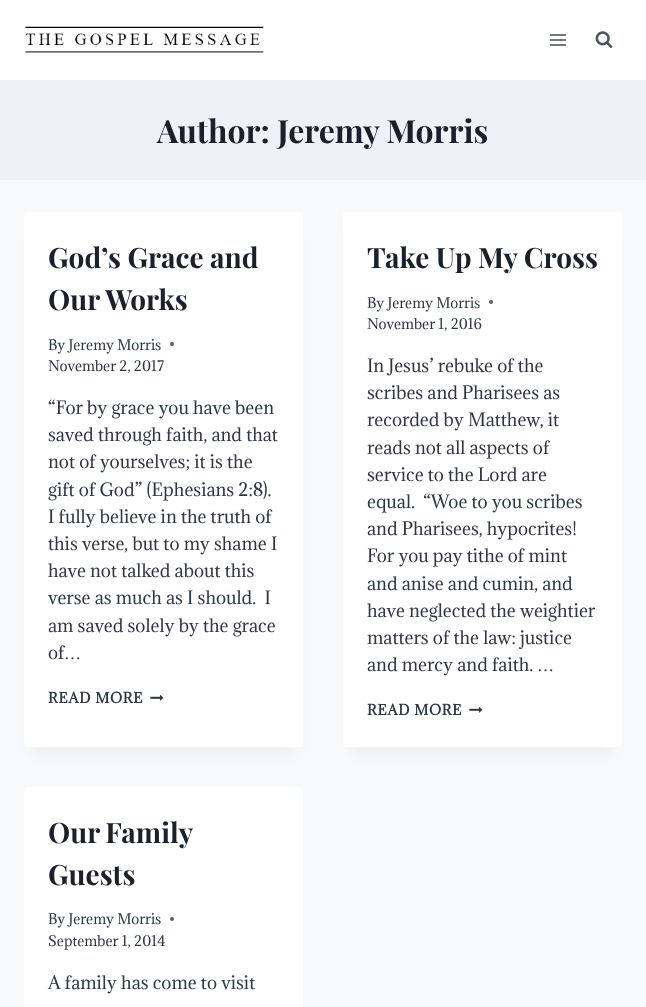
<svg xmlns="http://www.w3.org/2000/svg" width="646" height="1007" viewBox="0 0 646 1007">
  <rect width="100%" height="100%" fill="#f7fafc"/>
  <path d="M0 0h646v80H0z" fill="#fff"/>
  <image x="25" y="26" width="239" height="27" href="img/1.png"/>
  <image x="549" y="34" width="18" height="12" href="img/2.png"/>
  <image x="595" y="31" width="18" height="17" href="img/3.png"/>
  <path d="M0 80h646v100H0z" fill="#edf2f7"/>
  <path d="M34 237h259v515H34z" fill="#0000000d" filter="blur(7.5px)"/>
  <rect x="24" y="212" width="279" height="535" rx="4" fill="#fff"/>
  <circle cx="172" cy="344" r="2" fill="#575f6d"/>
  <image x="150" y="694" width="14" height="7" href="img/4.png"/>
  <path d="M353 237h259v515H353z" fill="#0000000d" filter="blur(7.5px)"/>
  <rect x="343" y="212" width="279" height="535" rx="4" fill="#fff"/>
  <circle cx="491" cy="302" r="2" fill="#575f6d"/>
  <image x="469" y="706" width="14" height="7" href="img/4.png"/>
  <rect x="24" y="787" width="279" height="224" rx="4" fill="#fff"/>
  <circle cx="172" cy="919" r="2" fill="#575f6d"/>
  <text x="157" y="143" font-family="Playfair Display" font-size="32" font-weight="bold" fill="#1a202c">Author: Jeremy Morris</text>
  <g font-family="Playfair Display" font-size="28" font-weight="bold" fill="#1a202c">
    <text x="48" y="268">God’s Grace and</text>
    <text x="48" y="310">Our Works</text>
  </g>
  <g font-family="Adamina" font-size="13.5" fill="#2d3748">
    <text x="48" y="350">By Jeremy Morris</text>
    <text x="48" y="371">November 2, 2017</text>
  </g>
  <g font-family="Adamina" font-size="17" fill="#2d3748">
    <text x="48" y="414">“For by grace you have been</text>
    <text x="48" y="441">saved through faith, and that</text>
    <text x="48" y="468">not of yourselves; it is the</text>
    <text x="48" y="496">gift of God” (Ephesians 2:8).</text>
    <text x="48" y="523">I fully believe in the truth of</text>
    <text x="48" y="550">this verse, but to my shame I</text>
    <text x="48" y="577">have not talked about this</text>
    <text x="48" y="604" xml:space="preserve">verse as much as I should.  I</text>
    <text x="48" y="632">am saved solely by the grace</text>
    <text x="48" y="659">of</text>
  </g>
  <text x="64" y="659" font-family="Liberation Serif" font-size="17" fill="#2d3748">…</text>
  <text x="48" y="703" font-family="Adamina" font-size="13.5" font-weight="bold" letter-spacing="0.75" fill="#2d3748">READ MORE</text>
  <text x="367" y="268" font-family="Playfair Display" font-size="28" font-weight="bold" fill="#1a202c">Take Up My Cross</text>
  <g font-family="Adamina" font-size="13.5" fill="#2d3748">
    <text x="367" y="308">By Jeremy Morris</text>
    <text x="367" y="329">November 1, 2016</text>
  </g>
  <g font-family="Adamina" font-size="17" fill="#2d3748">
    <text x="367" y="372">In Jesus’ rebuke of the</text>
    <text x="367" y="399">scribes and Pharisees as</text>
    <text x="367" y="426">recorded by Matthew, it</text>
    <text x="367" y="454">reads not all aspects of</text>
    <text x="367" y="481">service to the Lord are</text>
    <text x="367" y="508" xml:space="preserve">equal.  “Woe to you scribes</text>
    <text x="367" y="535">and Pharisees, hypocrites!</text>
    <text x="367" y="562">For you pay tithe of mint</text>
    <text x="367" y="590">and anise and cumin, and</text>
    <text x="367" y="617">have neglected the weightier</text>
    <text x="367" y="644">matters of the law: justice</text>
    <text x="367" y="671">and mercy and faith.</text>
  </g>
  <text x="537" y="671" font-family="Liberation Serif" font-size="17" fill="#2d3748">…</text>
  <text x="367" y="715" font-family="Adamina" font-size="13.5" font-weight="bold" letter-spacing="0.75" fill="#2d3748">READ MORE</text>
  <g font-family="Playfair Display" font-size="28" font-weight="bold" fill="#1a202c">
    <text x="48" y="843" word-spacing="-1">Our Family</text>
    <text x="48" y="885">Guests</text>
  </g>
  <g font-family="Adamina" font-size="13.5" fill="#2d3748">
    <text x="48" y="924">By Jeremy Morris</text>
    <text x="48" y="946">September 1, 2014</text>
  </g>
  <text x="48" y="989" font-family="Adamina" font-size="17" fill="#2d3748">A family has come to visit</text>
</svg>
